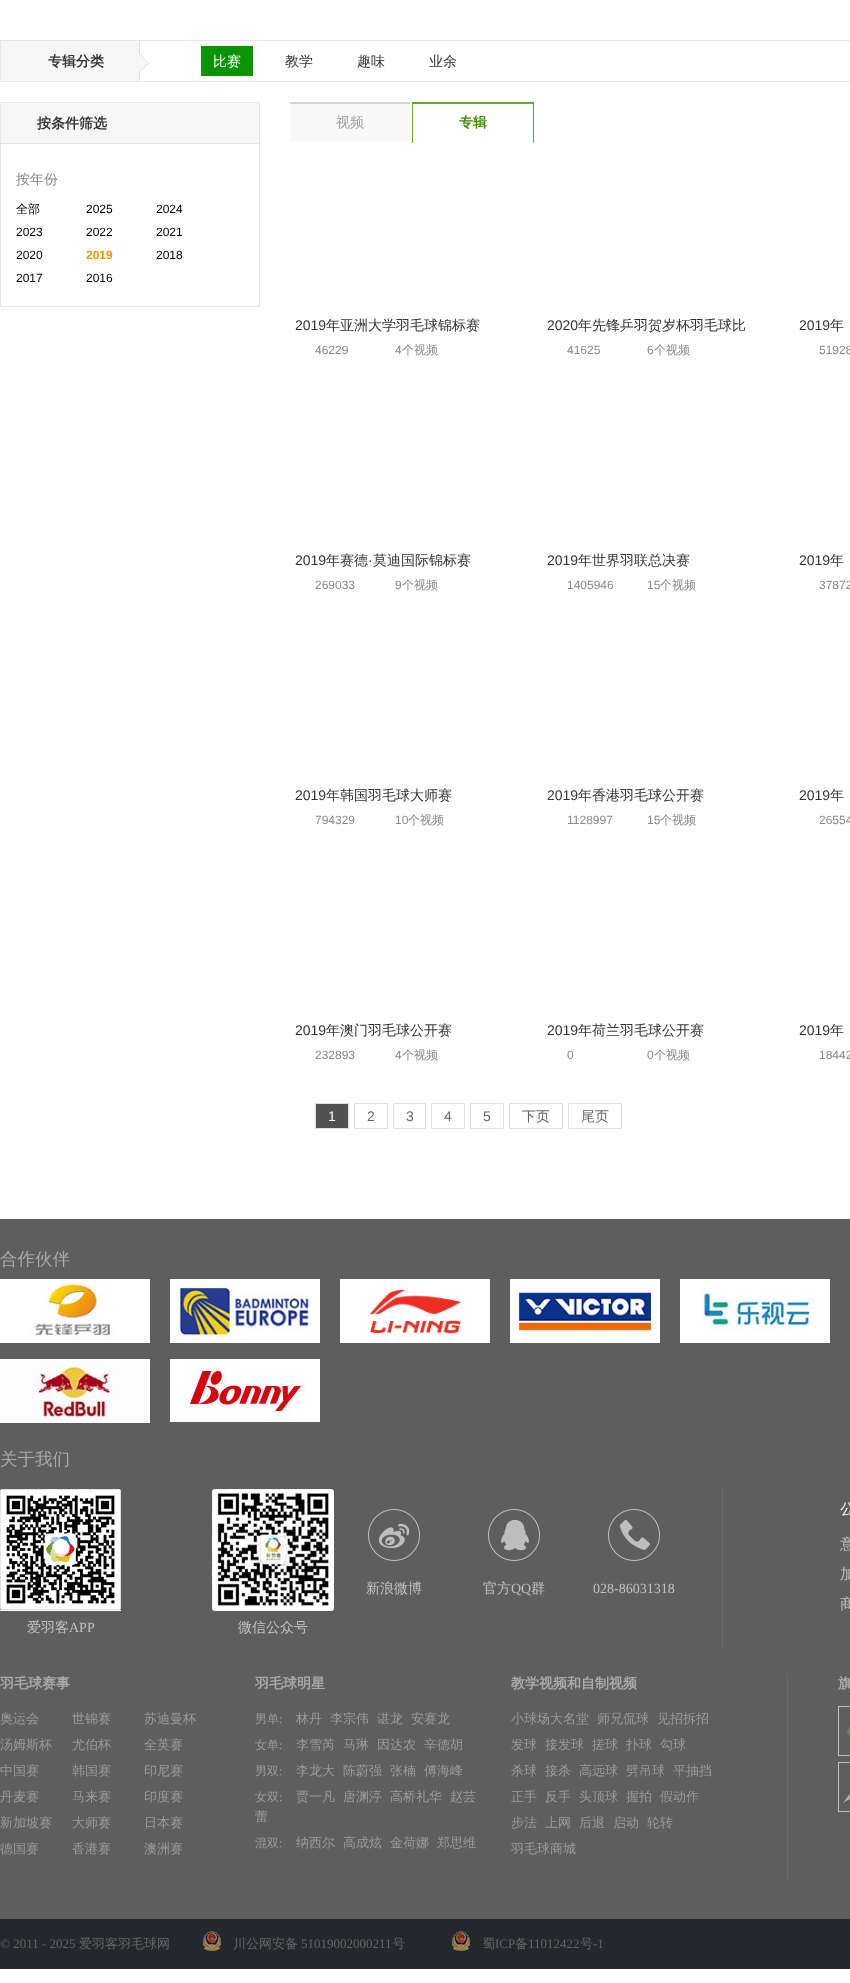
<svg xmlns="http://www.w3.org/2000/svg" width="850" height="1983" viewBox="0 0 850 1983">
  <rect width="100%" height="100%" fill="#fff"/>
  <path d="M0.5 40.5h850v41H0.5z" fill="none" stroke="#e6e6e6"/>
  <path d="M1 41h138v40H1z" fill="#f6f6f6"/>
  <image x="139" y="41" width="12" height="40" href="img/1.png"/>
  <path d="M201 46h52v30H201z" fill="#0a9400"/>
  <path d="M0.5 102.5h259v204H0.5z" fill="none" stroke="#e6e6e6"/>
  <path d="M1 103h258v40H1z" fill="#f6f6f6"/>
  <path d="M1 143h258v1H1z" fill="#e6e6e6"/>
  <path d="M290 104h120v38H290z" fill="#f9f9f9"/>
  <path d="M290 102h120v2H290z" fill="#d3d3d3"/>
  <path d="M412 102h122v2H412z" fill="#6a3"/>
  <path d="M533 102h1v41H533z" fill="#6a3"/>
  <path d="M412 102h1v41H412z" fill="#6a3"/>
  <path d="M315.5 1103.5h33v25H315.5z" fill="#515151" stroke="#e1e1e1"/>
  <path d="M354.5 1103.5h33v25H354.5z" fill="none" stroke="#e1e1e1"/>
  <path d="M393.5 1103.5h32v25H393.5z" fill="none" stroke="#e1e1e1"/>
  <path d="M431.5 1103.5h33v25H431.5z" fill="none" stroke="#e1e1e1"/>
  <path d="M470.5 1103.5h33v25H470.5z" fill="none" stroke="#e1e1e1"/>
  <path d="M509.5 1103.5h53v25H509.5z" fill="none" stroke="#e1e1e1"/>
  <path d="M568.5 1103.5h53v25H568.5z" fill="none" stroke="#e1e1e1"/>
  <path d="M0 1219h850v700H0z" fill="#5e5e5e"/>
  <image x="0" y="1279" width="150" height="64" href="img/2.png"/>
  <image x="170" y="1279" width="150" height="64" href="img/3.png"/>
  <image x="340" y="1279" width="150" height="64" href="img/4.png"/>
  <image x="510" y="1279" width="150" height="64" href="img/5.png"/>
  <image x="680" y="1279" width="150" height="64" href="img/6.png"/>
  <image x="0" y="1359" width="150" height="64" href="img/7.png"/>
  <image x="170" y="1359" width="150" height="63" href="img/8.png"/>
  <path d="M722 1489h1v160H722z" fill="#6a6a6a"/>
  <image x="368" y="1509" width="52" height="52" href="img/9.png"/>
  <image x="488" y="1509" width="52" height="52" href="img/10.png"/>
  <image x="608" y="1509" width="52" height="52" href="img/11.png"/>
  <image x="0" y="1489" width="121" height="122" href="img/12.png"/>
  <image x="212" y="1489" width="122" height="122" href="img/13.png"/>
  <path d="M787 1674h1v205H787z" fill="#6a6a6a"/>
  <image x="838" y="1706" width="12" height="50" href="img/14.png"/>
  <image x="838" y="1762" width="12" height="50" href="img/15.png"/>
  <path d="M0 1919h850v50H0z" fill="#23282d"/>
  <image x="203" y="1931" width="18" height="20" href="img/16.png"/>
  <image x="452" y="1931" width="18" height="20" href="img/16.png"/>
  <text x="48" y="66" font-family="WenQuanYi Zen Hei" font-size="14" font-weight="bold" fill="#333">专辑分类</text>
  <text x="213" y="66" font-family="WenQuanYi Zen Hei" font-size="14" font-weight="500" fill="#fff">比赛</text>
  <g font-family="WenQuanYi Zen Hei" font-size="14" font-weight="500" fill="#333">
    <text x="285" y="66">教学</text>
    <text x="357" y="66">趣味</text>
    <text x="429" y="66">业余</text>
  </g>
  <text x="37" y="128" font-family="WenQuanYi Zen Hei" font-size="14" font-weight="bold" fill="#333">按条件筛选</text>
  <text x="16" y="184" font-family="WenQuanYi Zen Hei" font-size="14" font-weight="500" fill="#888">按年份</text>
  <text x="16" y="213" font-family="WenQuanYi Zen Hei" font-size="12" font-weight="500" fill="#000">全部</text>
  <g font-family="Liberation Sans" font-size="12" fill="#000">
    <text x="86" y="213">2025</text>
    <text x="156" y="213">2024</text>
    <text x="16" y="236">2023</text>
    <text x="86" y="236">2022</text>
    <text x="156" y="236">2021</text>
    <text x="16" y="259">2020</text>
  </g>
  <text x="86" y="259" font-family="Liberation Sans" font-size="12" font-weight="bold" fill="#ff9106">2019</text>
  <g font-family="Liberation Sans" font-size="12" fill="#000">
    <text x="156" y="259">2018</text>
    <text x="16" y="282">2017</text>
    <text x="86" y="282">2016</text>
  </g>
  <text x="336" y="127" font-family="WenQuanYi Zen Hei" font-size="14" font-weight="500" fill="#9c9c9c">视频</text>
  <text x="459" y="127" font-family="WenQuanYi Zen Hei" font-size="14" font-weight="bold" fill="#3b8900">专辑</text>
  <text x="295" y="330" font-family="Liberation Sans" font-size="14" fill="#333">2019</text>
  <text x="326" y="330" font-family="WenQuanYi Zen Hei" font-size="14" font-weight="500" fill="#333">年亚洲大学羽毛球锦标赛</text>
  <g font-family="Liberation Sans" font-size="12" fill="#888">
    <text x="315" y="354">46229</text>
    <text x="395" y="354">4</text>
  </g>
  <text x="402" y="354" font-family="WenQuanYi Zen Hei" font-size="12" font-weight="500" fill="#888">个视频</text>
  <text x="547" y="330" font-family="Liberation Sans" font-size="14" fill="#333">2020</text>
  <text x="578" y="330" font-family="WenQuanYi Zen Hei" font-size="14" font-weight="500" fill="#333">年先锋乒羽贺岁杯羽毛球比</text>
  <g font-family="Liberation Sans" font-size="12" fill="#888">
    <text x="567" y="354">41625</text>
    <text x="647" y="354">6</text>
  </g>
  <text x="654" y="354" font-family="WenQuanYi Zen Hei" font-size="12" font-weight="500" fill="#888">个视频</text>
  <text x="799" y="330" font-family="Liberation Sans" font-size="14" fill="#333">2019</text>
  <text x="830" y="330" font-family="WenQuanYi Zen Hei" font-size="14" font-weight="500" fill="#333">年</text>
  <text x="819" y="354" font-family="Liberation Sans" font-size="12" fill="#888">51928</text>
  <text x="295" y="565" font-family="Liberation Sans" font-size="14" fill="#333">2019</text>
  <text x="326" y="565" font-family="WenQuanYi Zen Hei" font-size="14" font-weight="500" fill="#333">年赛德</text>
  <text x="368" y="565" font-family="Liberation Sans" font-size="14" fill="#333">·</text>
  <text x="373" y="565" font-family="WenQuanYi Zen Hei" font-size="14" font-weight="500" fill="#333">莫迪国际锦标赛</text>
  <g font-family="Liberation Sans" font-size="12" fill="#888">
    <text x="315" y="589">269033</text>
    <text x="395" y="589">9</text>
  </g>
  <text x="402" y="589" font-family="WenQuanYi Zen Hei" font-size="12" font-weight="500" fill="#888">个视频</text>
  <text x="547" y="565" font-family="Liberation Sans" font-size="14" fill="#333">2019</text>
  <text x="578" y="565" font-family="WenQuanYi Zen Hei" font-size="14" font-weight="500" fill="#333">年世界羽联总决赛</text>
  <g font-family="Liberation Sans" font-size="12" fill="#888">
    <text x="567" y="589">1405946</text>
    <text x="647" y="589">15</text>
  </g>
  <text x="660" y="589" font-family="WenQuanYi Zen Hei" font-size="12" font-weight="500" fill="#888">个视频</text>
  <text x="799" y="565" font-family="Liberation Sans" font-size="14" fill="#333">2019</text>
  <text x="830" y="565" font-family="WenQuanYi Zen Hei" font-size="14" font-weight="500" fill="#333">年</text>
  <text x="819" y="589" font-family="Liberation Sans" font-size="12" fill="#888">37872</text>
  <text x="295" y="800" font-family="Liberation Sans" font-size="14" fill="#333">2019</text>
  <text x="326" y="800" font-family="WenQuanYi Zen Hei" font-size="14" font-weight="500" fill="#333">年韩国羽毛球大师赛</text>
  <g font-family="Liberation Sans" font-size="12" fill="#888">
    <text x="315" y="824">794329</text>
    <text x="395" y="824">10</text>
  </g>
  <text x="408" y="824" font-family="WenQuanYi Zen Hei" font-size="12" font-weight="500" fill="#888">个视频</text>
  <text x="547" y="800" font-family="Liberation Sans" font-size="14" fill="#333">2019</text>
  <text x="578" y="800" font-family="WenQuanYi Zen Hei" font-size="14" font-weight="500" fill="#333">年香港羽毛球公开赛</text>
  <g font-family="Liberation Sans" font-size="12" fill="#888">
    <text x="567" y="824">1128997</text>
    <text x="647" y="824">15</text>
  </g>
  <text x="660" y="824" font-family="WenQuanYi Zen Hei" font-size="12" font-weight="500" fill="#888">个视频</text>
  <text x="799" y="800" font-family="Liberation Sans" font-size="14" fill="#333">2019</text>
  <text x="830" y="800" font-family="WenQuanYi Zen Hei" font-size="14" font-weight="500" fill="#333">年</text>
  <text x="819" y="824" font-family="Liberation Sans" font-size="12" fill="#888">26554</text>
  <text x="295" y="1035" font-family="Liberation Sans" font-size="14" fill="#333">2019</text>
  <text x="326" y="1035" font-family="WenQuanYi Zen Hei" font-size="14" font-weight="500" fill="#333">年澳门羽毛球公开赛</text>
  <g font-family="Liberation Sans" font-size="12" fill="#888">
    <text x="315" y="1059">232893</text>
    <text x="395" y="1059">4</text>
  </g>
  <text x="402" y="1059" font-family="WenQuanYi Zen Hei" font-size="12" font-weight="500" fill="#888">个视频</text>
  <text x="547" y="1035" font-family="Liberation Sans" font-size="14" fill="#333">2019</text>
  <text x="578" y="1035" font-family="WenQuanYi Zen Hei" font-size="14" font-weight="500" fill="#333">年荷兰羽毛球公开赛</text>
  <g font-family="Liberation Sans" font-size="12" fill="#888">
    <text x="567" y="1059">0</text>
    <text x="647" y="1059">0</text>
  </g>
  <text x="654" y="1059" font-family="WenQuanYi Zen Hei" font-size="12" font-weight="500" fill="#888">个视频</text>
  <text x="799" y="1035" font-family="Liberation Sans" font-size="14" fill="#333">2019</text>
  <text x="830" y="1035" font-family="WenQuanYi Zen Hei" font-size="14" font-weight="500" fill="#333">年</text>
  <text x="819" y="1059" font-family="Liberation Sans" font-size="12" fill="#888">18442</text>
  <text x="328" y="1121" font-family="Liberation Sans" font-size="14" fill="#fff">1</text>
  <g font-family="Liberation Sans" font-size="14" fill="#666">
    <text x="367" y="1121">2</text>
    <text x="406" y="1121">3</text>
    <text x="444" y="1121">4</text>
    <text x="483" y="1121">5</text>
  </g>
  <g font-family="WenQuanYi Zen Hei" font-size="14" font-weight="500" fill="#666">
    <text x="522" y="1121">下页</text>
    <text x="581" y="1121">尾页</text>
  </g>
  <g font-family="WenQuanYi Zen Hei" font-size="17.5" font-weight="500" fill="#ababab">
    <text x="0" y="1265">合作伙伴</text>
    <text x="0" y="1465">关于我们</text>
  </g>
  <g font-family="WenQuanYi Zen Hei" font-size="14" font-weight="500" fill="#c2c2c2">
    <text x="366" y="1593">新浪微博</text>
    <text x="483" y="1593">官方</text>
  </g>
  <text x="511" y="1593" font-family="Liberation Serif" font-size="14" fill="#c2c2c2">QQ</text>
  <text x="531" y="1593" font-family="WenQuanYi Zen Hei" font-size="14" font-weight="500" fill="#c2c2c2">群</text>
  <text x="593" y="1593" font-family="Liberation Serif" font-size="14" fill="#c2c2c2">028-86031318</text>
  <text x="840" y="1514" font-family="WenQuanYi Zen Hei" font-size="15" font-weight="500" fill="#f8f8f8">公</text>
  <g font-family="WenQuanYi Zen Hei" font-size="15" font-weight="500" fill="#c2c2c2">
    <text x="840" y="1549">意</text>
    <text x="840" y="1579">加</text>
    <text x="840" y="1609">商</text>
  </g>
  <text x="27" y="1632" font-family="WenQuanYi Zen Hei" font-size="14" font-weight="500" fill="#c2c2c2">爱羽客</text>
  <text x="69" y="1632" font-family="Liberation Serif" font-size="14" fill="#c2c2c2">APP</text>
  <text x="238" y="1632" font-family="WenQuanYi Zen Hei" font-size="14" font-weight="500" fill="#c2c2c2">微信公众号</text>
  <text x="0" y="1688" font-family="WenQuanYi Zen Hei" font-size="14" font-weight="bold" fill="#ababab">羽毛球赛事</text>
  <g font-family="WenQuanYi Zen Hei" font-size="13" font-weight="500" fill="#9c9c9c">
    <text x="0" y="1723">奥运会</text>
    <text x="72" y="1723">世锦赛</text>
    <text x="144" y="1723">苏迪曼杯</text>
    <text x="0" y="1749">汤姆斯杯</text>
    <text x="72" y="1749">尤伯杯</text>
    <text x="144" y="1749">全英赛</text>
    <text x="0" y="1775">中国赛</text>
    <text x="72" y="1775">韩国赛</text>
    <text x="144" y="1775">印尼赛</text>
    <text x="0" y="1801">丹麦赛</text>
    <text x="72" y="1801">马来赛</text>
    <text x="144" y="1801">印度赛</text>
    <text x="0" y="1827">新加坡赛</text>
    <text x="72" y="1827">大师赛</text>
    <text x="144" y="1827">日本赛</text>
    <text x="0" y="1853">德国赛</text>
    <text x="72" y="1853">香港赛</text>
    <text x="144" y="1853">澳洲赛</text>
  </g>
  <text x="255" y="1688" font-family="WenQuanYi Zen Hei" font-size="14" font-weight="bold" fill="#ababab">羽毛球明星</text>
  <text x="255" y="1723" font-family="WenQuanYi Zen Hei" font-size="12" font-weight="500" fill="#9c9c9c">男单</text>
  <text x="279" y="1723" font-family="Liberation Serif" font-size="12" fill="#9c9c9c">:</text>
  <g font-family="WenQuanYi Zen Hei" font-size="13" font-weight="500" fill="#9c9c9c">
    <text x="296" y="1723">林丹</text>
    <text x="330" y="1723">李宗伟</text>
    <text x="377" y="1723">谌龙</text>
    <text x="411" y="1723">安赛龙</text>
  </g>
  <text x="255" y="1749" font-family="WenQuanYi Zen Hei" font-size="12" font-weight="500" fill="#9c9c9c">女单</text>
  <text x="279" y="1749" font-family="Liberation Serif" font-size="12" fill="#9c9c9c">:</text>
  <g font-family="WenQuanYi Zen Hei" font-size="13" font-weight="500" fill="#9c9c9c">
    <text x="296" y="1749">李雪芮</text>
    <text x="343" y="1749">马琳</text>
    <text x="377" y="1749">因达农</text>
    <text x="424" y="1749">辛德胡</text>
  </g>
  <text x="255" y="1775" font-family="WenQuanYi Zen Hei" font-size="12" font-weight="500" fill="#9c9c9c">男双</text>
  <text x="279" y="1775" font-family="Liberation Serif" font-size="12" fill="#9c9c9c">:</text>
  <g font-family="WenQuanYi Zen Hei" font-size="13" font-weight="500" fill="#9c9c9c">
    <text x="296" y="1775">李龙大</text>
    <text x="343" y="1775">陈蔚强</text>
    <text x="390" y="1775">张楠</text>
    <text x="424" y="1775">傅海峰</text>
  </g>
  <text x="255" y="1801" font-family="WenQuanYi Zen Hei" font-size="12" font-weight="500" fill="#9c9c9c">女双</text>
  <text x="279" y="1801" font-family="Liberation Serif" font-size="12" fill="#9c9c9c">:</text>
  <g font-family="WenQuanYi Zen Hei" font-size="13" font-weight="500" fill="#9c9c9c">
    <text x="296" y="1801">贾一凡</text>
    <text x="343" y="1801">唐渊渟</text>
    <text x="390" y="1801">高桥礼华</text>
    <text x="450" y="1801">赵芸</text>
    <text x="255" y="1821">蕾</text>
  </g>
  <text x="255" y="1847" font-family="WenQuanYi Zen Hei" font-size="12" font-weight="500" fill="#9c9c9c">混双</text>
  <text x="279" y="1847" font-family="Liberation Serif" font-size="12" fill="#9c9c9c">:</text>
  <g font-family="WenQuanYi Zen Hei" font-size="13" font-weight="500" fill="#9c9c9c">
    <text x="296" y="1847">纳西尔</text>
    <text x="343" y="1847">高成炫</text>
    <text x="390" y="1847">金荷娜</text>
    <text x="437" y="1847">郑思维</text>
  </g>
  <text x="511" y="1688" font-family="WenQuanYi Zen Hei" font-size="14" font-weight="bold" fill="#ababab">教学视频和自制视频</text>
  <g font-family="WenQuanYi Zen Hei" font-size="13" font-weight="500" fill="#9c9c9c">
    <text x="511" y="1723">小球场大名堂</text>
    <text x="597" y="1723">师兄侃球</text>
    <text x="657" y="1723">见招拆招</text>
    <text x="511" y="1749">发球</text>
    <text x="545" y="1749">接发球</text>
    <text x="592" y="1749">搓球</text>
    <text x="626" y="1749">扑球</text>
    <text x="660" y="1749">勾球</text>
    <text x="511" y="1775">杀球</text>
    <text x="545" y="1775">接杀</text>
    <text x="579" y="1775">高远球</text>
    <text x="626" y="1775">劈吊球</text>
    <text x="673" y="1775">平抽挡</text>
    <text x="511" y="1801">正手</text>
    <text x="545" y="1801">反手</text>
    <text x="579" y="1801">头顶球</text>
    <text x="626" y="1801">握拍</text>
    <text x="660" y="1801">假动作</text>
    <text x="511" y="1827">步法</text>
    <text x="545" y="1827">上网</text>
    <text x="579" y="1827">后退</text>
    <text x="613" y="1827">启动</text>
    <text x="647" y="1827">轮转</text>
    <text x="511" y="1853">羽毛球商城</text>
  </g>
  <text x="838" y="1688" font-family="WenQuanYi Zen Hei" font-size="14" font-weight="bold" fill="#ababab">旗</text>
  <text x="0" y="1948" font-family="Liberation Serif" font-size="13" fill="#666">© 2011 - 2025</text>
  <g font-family="WenQuanYi Zen Hei" font-size="13" font-weight="500" fill="#666">
    <text x="79" y="1948">爱羽客羽毛球网</text>
    <text x="233" y="1948">川公网安备</text>
  </g>
  <text x="301" y="1948" font-family="Liberation Serif" font-size="13" fill="#666">51019002000211</text>
  <g font-family="WenQuanYi Zen Hei" font-size="13" font-weight="500" fill="#666">
    <text x="392" y="1948">号</text>
    <text x="482" y="1948">蜀</text>
  </g>
  <text x="495" y="1948" font-family="Liberation Serif" font-size="13" fill="#666">ICP</text>
  <text x="515" y="1948" font-family="WenQuanYi Zen Hei" font-size="13" font-weight="500" fill="#666">备</text>
  <text x="528" y="1948" font-family="Liberation Serif" font-size="13" fill="#666">11012422</text>
  <text x="580" y="1948" font-family="WenQuanYi Zen Hei" font-size="13" font-weight="500" fill="#666">号</text>
  <text x="593" y="1948" font-family="Liberation Serif" font-size="13" fill="#666">-1</text>
</svg>
